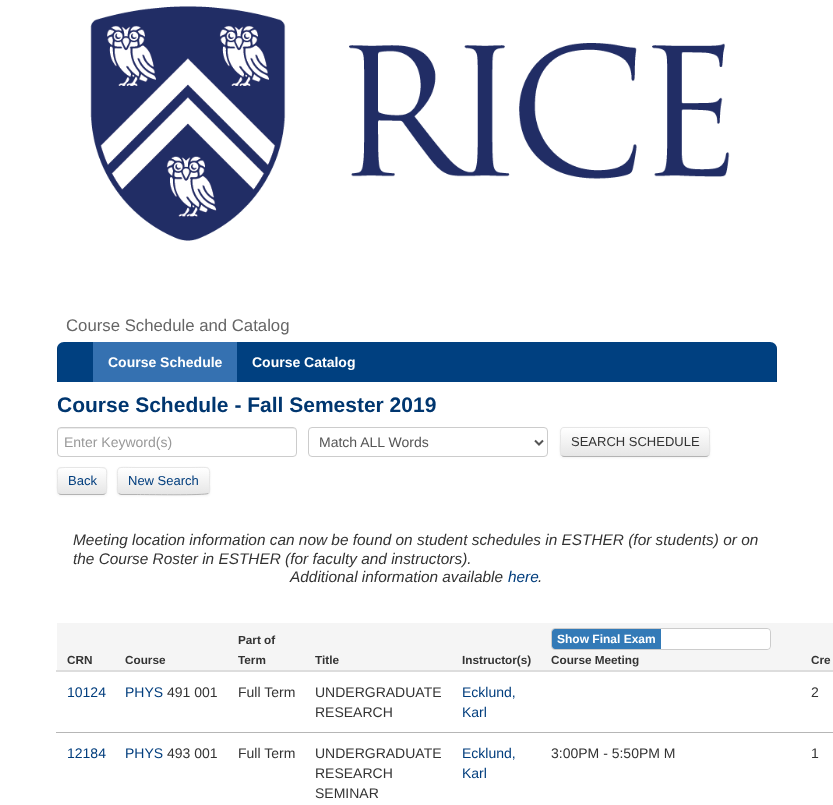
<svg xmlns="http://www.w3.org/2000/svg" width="833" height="805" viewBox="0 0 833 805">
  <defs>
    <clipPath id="clip1"><rect x="560" y="427" width="150" height="30" rx="4"/></clipPath>
    <linearGradient id="g1" gradientUnits="userSpaceOnUse" x1="635" y1="428" x2="635" y2="456"><stop offset="0" stop-color="#fff"/><stop offset="1" stop-color="#e6e6e6"/></linearGradient>
    <clipPath id="clip2"><rect x="57" y="467" width="50" height="28" rx="4"/></clipPath>
    <linearGradient id="g2" gradientUnits="userSpaceOnUse" x1="82" y1="468" x2="82" y2="494"><stop offset="0" stop-color="#fff"/><stop offset="1" stop-color="#e6e6e6"/></linearGradient>
    <clipPath id="clip3"><rect x="117" y="467" width="93" height="28" rx="4"/></clipPath>
    <linearGradient id="g3" gradientUnits="userSpaceOnUse" x1="164" y1="468" x2="164" y2="494"><stop offset="0" stop-color="#fff"/><stop offset="1" stop-color="#e6e6e6"/></linearGradient>
  </defs>
  <rect width="100%" height="100%" fill="#fff"/>
  <image x="90" y="6" width="640" height="235" href="img/1.png"/>
  <path d="M64 342H770C774 342 777 345 777 349V382H57V349C57 345 60 342 64 342Z" fill="#004080"/>
  <path d="M776 346h1v36H776z" fill="#0000001a"/>
  <path d="M57 346h1v36H57z" fill="#0000001a"/>
  <path d="M93 342h144v40H93z" fill="#3571b1"/>
  <path d="M61 429H294L296 430V432C296 430 295 428 293 428H61C59 428 58 430 58 432C58 430 59 429 61 429Z" fill="#ececec"/>
  <rect x="57.5" y="427.5" width="239" height="29" rx="3.5" fill="none" stroke="#ccc"/>
  <rect x="308.5" y="427.5" width="239" height="29" rx="3.5" fill="none" stroke="#ccc"/>
  <path d="M535 440.5L539 444.5L543 440.5" fill="none" stroke="#555" stroke-width="2"/>
  <rect x="560" y="428" width="150" height="30" rx="4" fill="#0000000d" filter="blur(1px)"/>
  <g clip-path="url(#clip1)">
    <path d="M560 428h150v28H560z" fill="url(#g1)"/>
  </g>
  <path d="M708.5 455.5C708 456 707 456.5 706 456.5H564C563 456.5 562 456 561.5 455.5" fill="none" stroke="#b3b3b3"/>
  <path d="M561.5 455.5C559.5 453.5 560.5 445 560.5 442V434.5C560.5 432 560 427.5 564 427.5H706C710 427.5 709.5 432 709.5 434.5V442C709.5 445 710.5 453.5 708.5 455.5" fill="none" stroke="#e6e6e6"/>
  <rect x="57" y="468" width="50" height="28" rx="4" fill="#0000000d" filter="blur(1px)"/>
  <rect x="57" y="467" width="50" height="28" rx="4" fill="#f5f5f5"/>
  <g clip-path="url(#clip2)">
    <path d="M57 468h50v26H57z" fill="url(#g2)"/>
  </g>
  <path d="M61 469H103C105 469 106 470 106 472C106 466 100 468 96 468H68C64 468 58 466 58 472C58 470 59 469 61 469Z" fill="#fff"/>
  <path d="M105.5 493.5C105 494 104 494.5 103 494.5H61C60 494.5 59 494 58.5 493.5" fill="none" stroke="#b3b3b3"/>
  <path d="M58.5 493.5C56.5 491 57.5 483.5 57.5 481C57.5 468 55 467.5 68 467.5H96C109 467.5 106.5 468 106.5 481C106.5 483.5 107.5 491 105.5 493.5" fill="none" stroke="#e6e6e6"/>
  <rect x="117" y="468" width="93" height="28" rx="4" fill="#0000000d" filter="blur(1px)"/>
  <rect x="117" y="467" width="93" height="28" rx="4" fill="#f5f5f5"/>
  <g clip-path="url(#clip3)">
    <path d="M117 468h93v26H117z" fill="url(#g3)"/>
  </g>
  <path d="M208.5 493.5H208C206 495.5 143.5 494.5 135 494.5H121L118.5 493.5" fill="none" stroke="#b3b3b3"/>
  <path d="M118.5 493.5C116.5 491.5 117.5 487 117.5 484.5C117.5 464.5 114.5 467.5 135 467.5H192C212.5 467.5 209.5 464.5 209.5 484.5C209.5 487 210.5 491.5 208.5 493.5" fill="none" stroke="#e6e6e6"/>
  <path d="M57 623h776v47H57z" fill="#f5f5f5"/>
  <rect x="551.5" y="628.5" width="219" height="21" rx="3.5" fill="none" stroke="#ccc"/>
  <path d="M555 629H661V649H555C553.5 649 552 647.5 552 646V632C552 630.5 553.5 629 555 629Z" fill="#337ab7"/>
  <path d="M661 629H767C768.5 629 770 630.5 770 632V646C770 647.5 768.5 649 767 649H661Z" fill="#fff"/>
  <path d="M56 670h777v2H56z" fill="#ddd"/>
  <path d="M56 732h777v1H56z" fill="#b6b6b6"/>
  <text x="66" y="331" font-family="Liberation Sans" font-size="16.75" fill="#666">Course Schedule and Catalog</text>
  <g font-family="Liberation Sans" font-size="14" font-weight="bold" fill="#fff">
    <text x="108" y="367">Course Schedule</text>
    <text x="252" y="367">Course Catalog</text>
  </g>
  <text x="57" y="412" font-family="Liberation Sans" font-size="21" font-weight="bold" fill="#00366f">Course Schedule - Fall Semester 2019</text>
  <text x="64" y="447" font-family="Liberation Sans" font-size="14" fill="#999">Enter Keyword(s)</text>
  <text x="319" y="447" font-family="Liberation Sans" font-size="14" fill="#555">Match ALL Words</text>
  <text x="571" y="446" font-family="Liberation Sans" font-size="13" fill="#333">SEARCH SCHEDULE</text>
  <g font-family="Liberation Sans" font-size="13" fill="#003d7d">
    <text x="68" y="485">Back</text>
    <text x="128" y="485">New Search</text>
  </g>
  <g font-family="Liberation Sans" font-size="15.4" font-style="italic" fill="#333">
    <text x="73" y="545">Meeting location information can now be found on student schedules in ESTHER (for students) or on</text>
    <text x="73" y="564">the Course Roster in ESTHER (for faculty and instructors).</text>
    <text x="290" y="582">Additional information available</text>
  </g>
  <text x="508" y="582" font-family="Liberation Sans" font-size="15.4" font-style="italic" fill="#003d7d">here</text>
  <text x="538" y="582" font-family="Liberation Sans" font-size="15.4" font-style="italic" fill="#333">.</text>
  <g font-family="Liberation Sans" font-size="11.75" font-weight="bold" fill="#333">
    <text x="67" y="664">CRN</text>
    <text x="125" y="664">Course</text>
    <text x="238" y="644">Part of</text>
    <text x="238" y="664">Term</text>
    <text x="315" y="664">Title</text>
    <text x="462" y="664">Instructor(s)</text>
  </g>
  <text x="557" y="643" font-family="Liberation Sans" font-size="12" font-weight="bold" fill="#fff">Show Final Exam</text>
  <g font-family="Liberation Sans" font-size="11.75" font-weight="bold" fill="#333">
    <text x="551" y="664">Course Meeting</text>
    <text x="811" y="664">Cre</text>
  </g>
  <g font-family="Liberation Sans" font-size="14" fill="#003d7d">
    <text x="67" y="697">10124</text>
    <text x="125" y="697">PHYS</text>
  </g>
  <g font-family="Liberation Sans" font-size="14" fill="#333">
    <text x="167" y="697">491 001</text>
    <text x="238" y="697">Full Term</text>
    <text x="315" y="697">UNDERGRADUATE</text>
    <text x="315" y="717">RESEARCH</text>
  </g>
  <g font-family="Liberation Sans" font-size="14" fill="#003d7d">
    <text x="462" y="697">Ecklund,</text>
    <text x="462" y="717">Karl</text>
  </g>
  <text x="811" y="697" font-family="Liberation Sans" font-size="14" fill="#333">2</text>
  <g font-family="Liberation Sans" font-size="14" fill="#003d7d">
    <text x="67" y="758">12184</text>
    <text x="125" y="758">PHYS</text>
  </g>
  <g font-family="Liberation Sans" font-size="14" fill="#333">
    <text x="167" y="758">493 001</text>
    <text x="238" y="758">Full Term</text>
    <text x="315" y="758">UNDERGRADUATE</text>
    <text x="315" y="778">RESEARCH</text>
    <text x="315" y="798">SEMINAR</text>
  </g>
  <g font-family="Liberation Sans" font-size="14" fill="#003d7d">
    <text x="462" y="758">Ecklund,</text>
    <text x="462" y="778">Karl</text>
  </g>
  <g font-family="Liberation Sans" font-size="14" fill="#333">
    <text x="551" y="758">3:00PM - 5:50PM M</text>
    <text x="811" y="758">1</text>
  </g>
</svg>
